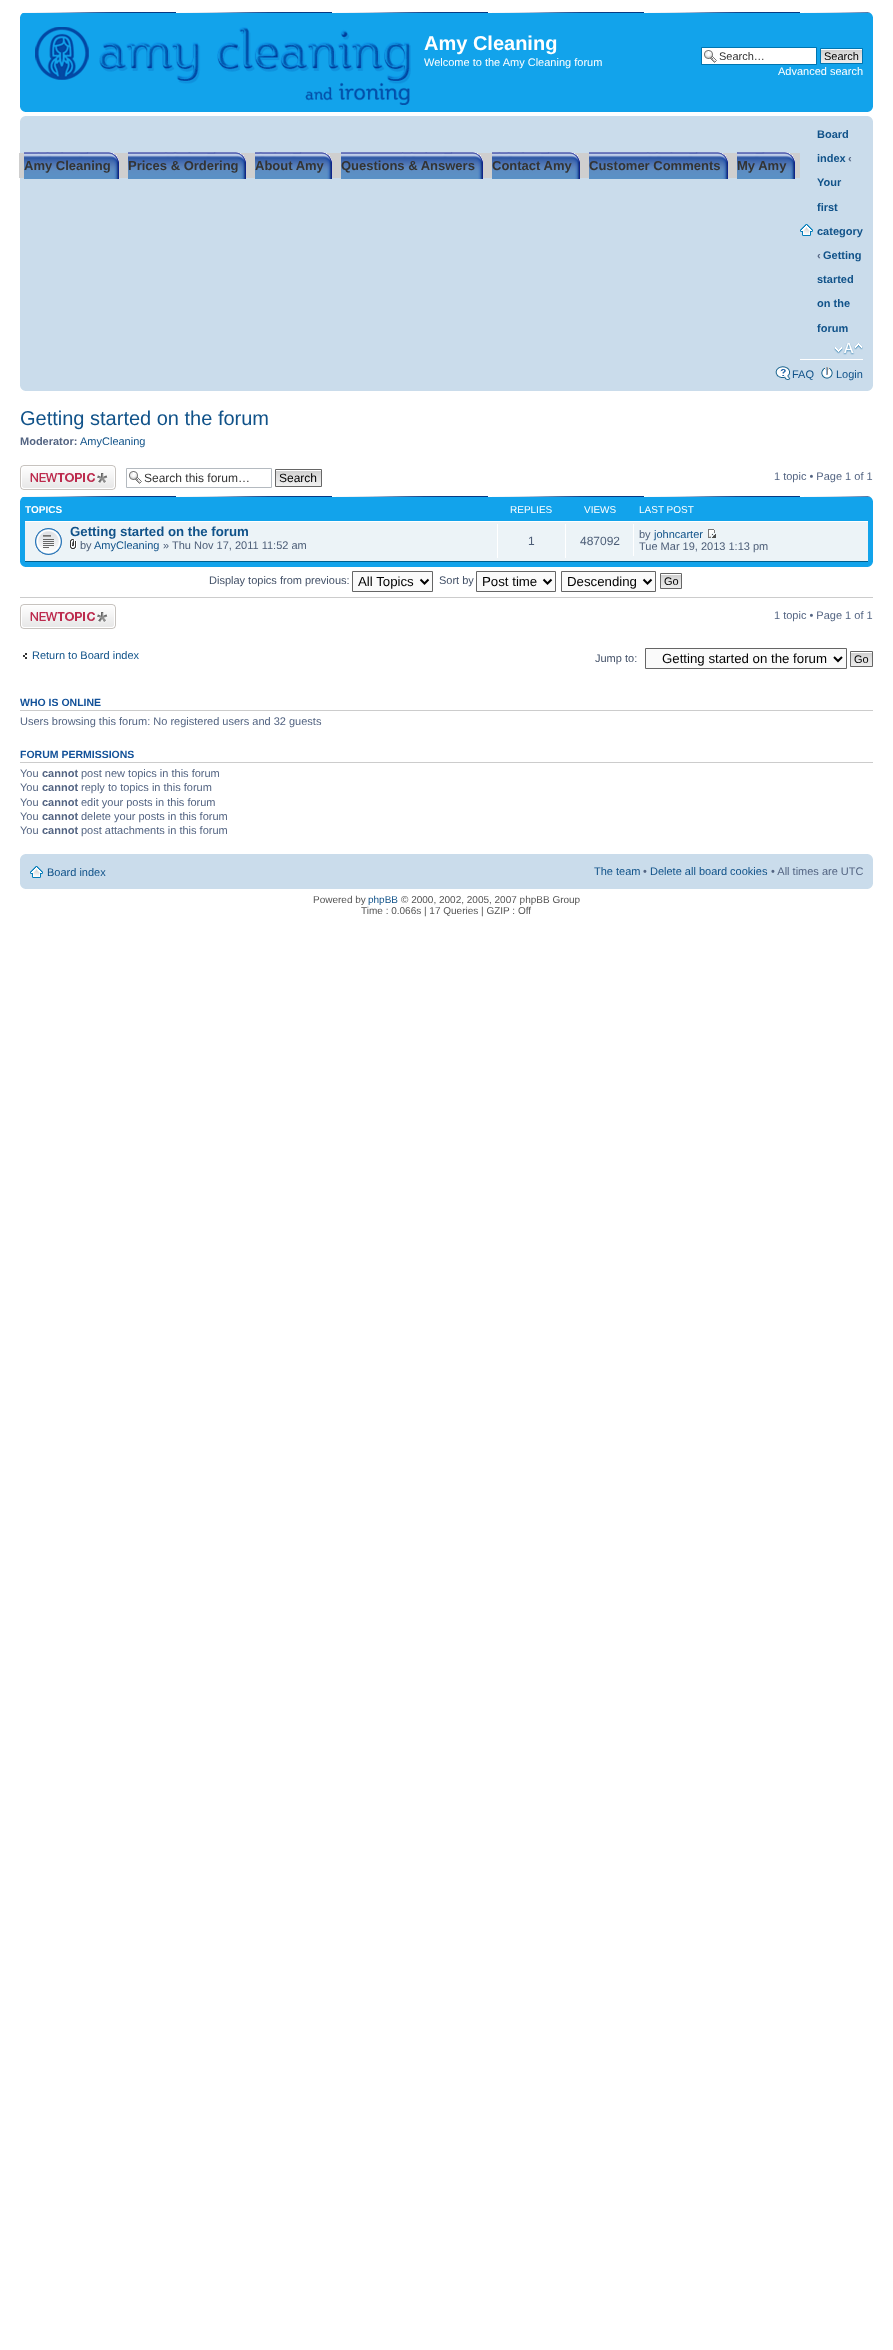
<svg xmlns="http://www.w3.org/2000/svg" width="893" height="2350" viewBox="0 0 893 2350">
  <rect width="100%" height="100%" fill="#fff"/>
  <path d="M20 13h853v99H20z" fill="#12a3eb"/>
  <image x="20" y="12" width="851" height="1" href="img/1.png"/>
  <image x="20" y="13" width="3" height="4" href="img/2.png"/>
  <image x="868" y="12" width="5" height="5" href="img/3.png"/>
  <image x="35" y="27" width="376" height="78" href="img/4.png"/>
  <path d="M702 48h114v16H702z" fill="#fff"/>
  <image x="704" y="50" width="13" height="13" href="img/5.png"/>
  <path d="M701.5 47.5h115v17H701.5z" fill="none" stroke="#0075b0"/>
  <image x="821" y="49" width="41" height="14" href="img/6.png"/>
  <path d="M820.5 48.5h42v15H820.5z" fill="none" stroke="#0075b0"/>
  <image x="20" y="107" width="5" height="5" href="img/7.png"/>
  <image x="868" y="107" width="5" height="5" href="img/8.png"/>
  <path d="M20 116h853v275H20z" fill="#cadceb"/>
  <path d="M19 153h781v25H19z" fill="#cfcfcf"/>
  <image x="24" y="152" width="95" height="27" href="img/9.png"/>
  <image x="128" y="152" width="118" height="27" href="img/10.png"/>
  <image x="255" y="152" width="77" height="27" href="img/11.png"/>
  <image x="341" y="152" width="142" height="27" href="img/12.png"/>
  <image x="492" y="152" width="88" height="27" href="img/13.png"/>
  <image x="589" y="152" width="139" height="27" href="img/14.png"/>
  <image x="737" y="152" width="58" height="27" href="img/15.png"/>
  <image x="20" y="116" width="5" height="5" href="img/16.png"/>
  <image x="868" y="116" width="5" height="5" href="img/17.png"/>
  <path d="M800 359h63v1H800z" fill="#fff"/>
  <image x="800" y="224" width="13" height="12" href="img/18.png"/>
  <image x="834" y="343" width="29" height="12" href="img/19.png"/>
  <image x="775" y="366" width="16" height="14" href="img/20.png"/>
  <image x="821" y="367" width="12" height="12" href="img/21.png"/>
  <image x="20" y="386" width="5" height="5" href="img/22.png"/>
  <image x="868" y="386" width="5" height="5" href="img/23.png"/>
  <image x="20" y="465" width="96" height="25" href="img/24.png"/>
  <image x="129" y="471" width="13" height="13" href="img/5.png"/>
  <path d="M126.5 468.5h145v19H126.5z" fill="none" stroke="#b4bac0"/>
  <image x="276" y="470" width="45" height="16" href="img/25.png"/>
  <path d="M275.5 469.5h46v17H275.5z" fill="none" stroke="#666"/>
  <path d="M20 497h853v70H20z" fill="#12a3eb"/>
  <image x="20" y="496" width="851" height="1" href="img/1.png"/>
  <image x="20" y="497" width="3" height="4" href="img/2.png"/>
  <image x="868" y="496" width="5" height="5" href="img/3.png"/>
  <path d="M25 522h843v39H25z" fill="#ecf3f7"/>
  <path d="M25 521h843v1H25z" fill="#fff"/>
  <path d="M25 561h843v1H25z" fill="#00608f"/>
  <image x="35" y="528" width="27" height="27" href="img/26.png"/>
  <image x="70" y="539" width="7" height="10" href="img/27.png"/>
  <path d="M497 524h1v34H497z" fill="#fff"/>
  <path d="M565 524h1v34H565z" fill="#fff"/>
  <path d="M633 524h1v32H633z" fill="#fff"/>
  <image x="708" y="529" width="8" height="9" href="img/28.png"/>
  <image x="20" y="562" width="5" height="5" href="img/7.png"/>
  <image x="868" y="562" width="5" height="5" href="img/8.png"/>
  <path d="M352.5 571.5h80v20H352.5z" fill="#fafafa" stroke="#666"/>
  <path d="M420.5 579.5L424.5 583.5L428.5 579.5" fill="none" stroke="#000" stroke-width="2"/>
  <path d="M476.5 571.5h79v20H476.5z" fill="#fafafa" stroke="#666"/>
  <path d="M543.5 579.5L547.5 583.5L551.5 579.5" fill="none" stroke="#000" stroke-width="2"/>
  <path d="M561.5 571.5h94v20H561.5z" fill="#fafafa" stroke="#666"/>
  <path d="M643.5 579.5L647.5 583.5L651.5 579.5" fill="none" stroke="#000" stroke-width="2"/>
  <image x="661" y="574" width="20" height="14" href="img/29.png"/>
  <path d="M660.5 573.5h21v15H660.5z" fill="none" stroke="#666"/>
  <path d="M20 597h853v1H20z" fill="#ccc"/>
  <image x="20" y="604" width="96" height="25" href="img/24.png"/>
  <image x="23" y="653" width="4" height="6" href="img/30.png"/>
  <path d="M645.5 648.5h201v20H645.5z" fill="#fafafa" stroke="#666"/>
  <path d="M834 657L838 661L842 657" fill="none" stroke="#000" stroke-width="2"/>
  <image x="851" y="652" width="21" height="14" href="img/31.png"/>
  <path d="M850.5 651.5h22v15H850.5z" fill="none" stroke="#666"/>
  <path d="M20 710h853v1H20z" fill="#ccc"/>
  <path d="M20 762h853v1H20z" fill="#ccc"/>
  <path d="M20 854h853v35H20z" fill="#cadceb"/>
  <image x="20" y="854" width="5" height="5" href="img/16.png"/>
  <image x="868" y="854" width="5" height="5" href="img/17.png"/>
  <image x="30" y="866" width="13" height="12" href="img/18.png"/>
  <image x="20" y="884" width="5" height="5" href="img/22.png"/>
  <image x="868" y="884" width="5" height="5" href="img/23.png"/>
  <text x="424" y="50" font-family="Liberation Sans" font-size="20" font-weight="bold" fill="#fff">Amy Cleaning</text>
  <text x="424" y="66" font-family="Liberation Sans" font-size="11" fill="#fff">Welcome to the Amy Cleaning forum</text>
  <text x="719" y="60" font-family="Liberation Sans" font-size="11" fill="#333">Search…</text>
  <text x="824" y="60" font-family="Liberation Sans" font-size="11" fill="#000">Search</text>
  <text x="778" y="75" font-family="Liberation Sans" font-size="11" fill="#fff">Advanced search</text>
  <g font-family="Liberation Sans" font-size="13" font-weight="bold" fill="#333">
    <text x="24" y="170">Amy Cleaning</text>
    <text x="128" y="170">Prices &amp; Ordering</text>
    <text x="255" y="170">About Amy</text>
    <text x="341" y="170">Questions &amp; Answers</text>
    <text x="492" y="170">Contact Amy</text>
    <text x="589" y="170">Customer Comments</text>
    <text x="737" y="170">My Amy</text>
  </g>
  <g font-family="Liberation Sans" font-size="11" font-weight="bold" fill="#105289">
    <text x="817" y="138">Board</text>
    <text x="817" y="162">index</text>
  </g>
  <text x="848" y="162" font-family="Liberation Sans" font-size="11" font-weight="bold" fill="#536482">‹</text>
  <g font-family="Liberation Sans" font-size="11" font-weight="bold" fill="#105289">
    <text x="817" y="186">Your</text>
    <text x="817" y="211">first</text>
    <text x="817" y="235">category</text>
  </g>
  <text x="817" y="259" font-family="Liberation Sans" font-size="11" font-weight="bold" fill="#536482">‹</text>
  <g font-family="Liberation Sans" font-size="11" font-weight="bold" fill="#105289">
    <text x="823" y="259">Getting</text>
    <text x="817" y="283">started</text>
    <text x="817" y="307">on the</text>
    <text x="817" y="332">forum</text>
  </g>
  <g font-family="Liberation Sans" font-size="11" fill="#105289">
    <text x="792" y="378">FAQ</text>
    <text x="836" y="378">Login</text>
  </g>
  <text x="20" y="425" font-family="Liberation Sans" font-size="20" fill="#105289">Getting started on the forum</text>
  <text x="20" y="445" font-family="Liberation Sans" font-size="11" font-weight="bold" fill="#536482">Moderator:</text>
  <text x="80" y="445" font-family="Liberation Sans" font-size="11" fill="#105289">AmyCleaning</text>
  <text x="144" y="482" font-family="Liberation Sans" font-size="12" fill="#333">Search this forum…</text>
  <text x="279" y="482" font-family="Liberation Sans" font-size="12" fill="#000">Search</text>
  <text x="774" y="480" font-family="Liberation Sans" font-size="11" fill="#536482">1 topic • Page 1 of 1</text>
  <text x="25" y="513" font-family="Liberation Sans" font-size="10" font-weight="bold" fill="#fff">TOPICS</text>
  <g font-family="Liberation Sans" font-size="10" fill="#fff">
    <text x="510" y="513">REPLIES</text>
    <text x="584" y="513">VIEWS</text>
    <text x="639" y="513">LAST POST</text>
  </g>
  <text x="70" y="536" font-family="Liberation Sans" font-size="13.25" font-weight="bold" fill="#105289">Getting started on the forum</text>
  <text x="80" y="549" font-family="Liberation Sans" font-size="11" fill="#4c5d77">by</text>
  <text x="94" y="549" font-family="Liberation Sans" font-size="11" fill="#105289">AmyCleaning</text>
  <text x="163" y="549" font-family="Liberation Sans" font-size="11" fill="#4c5d77">» Thu Nov 17, 2011 11:52 am</text>
  <g font-family="Liberation Sans" font-size="12" fill="#4c5d77">
    <text x="528" y="545">1</text>
    <text x="580" y="545">487092</text>
  </g>
  <text x="639" y="538" font-family="Liberation Sans" font-size="11" fill="#4c5d77">by</text>
  <text x="654" y="538" font-family="Liberation Sans" font-size="11" fill="#105289">johncarter</text>
  <text x="639" y="550" font-family="Liberation Sans" font-size="11" fill="#4c5d77">Tue Mar 19, 2013 1:13 pm</text>
  <text x="209" y="584" font-family="Liberation Sans" font-size="11" fill="#425067">Display topics from previous:</text>
  <text x="358" y="586" font-family="Liberation Sans" font-size="13.25" fill="#000">All Topics</text>
  <text x="439" y="584" font-family="Liberation Sans" font-size="11" fill="#425067">Sort by</text>
  <g font-family="Liberation Sans" font-size="13.25" fill="#000">
    <text x="482" y="586">Post time</text>
    <text x="567" y="586">Descending</text>
  </g>
  <text x="664" y="585" font-family="Liberation Sans" font-size="11" fill="#000">Go</text>
  <text x="774" y="619" font-family="Liberation Sans" font-size="11" fill="#536482">1 topic • Page 1 of 1</text>
  <text x="32" y="659" font-family="Liberation Sans" font-size="11" fill="#105289">Return to Board index</text>
  <text x="595" y="662" font-family="Liberation Sans" font-size="11" fill="#425067">Jump to:</text>
  <text x="662" y="663" font-family="Liberation Sans" font-size="13.25" fill="#000">Getting started on the forum</text>
  <text x="854" y="663" font-family="Liberation Sans" font-size="11" fill="#000">Go</text>
  <text x="20" y="706" font-family="Liberation Sans" font-size="10.5" font-weight="bold" fill="#115098">WHO IS ONLINE</text>
  <text x="20" y="725" font-family="Liberation Sans" font-size="11" fill="#536482">Users browsing this forum: No registered users and 32 guests</text>
  <text x="20" y="758" font-family="Liberation Sans" font-size="10.5" font-weight="bold" fill="#115098">FORUM PERMISSIONS</text>
  <text x="20" y="777" font-family="Liberation Sans" font-size="11" fill="#536482">You</text>
  <text x="42" y="777" font-family="Liberation Sans" font-size="11" font-weight="bold" fill="#536482">cannot</text>
  <g font-family="Liberation Sans" font-size="11" fill="#536482">
    <text x="81" y="777">post new topics in this forum</text>
    <text x="20" y="791">You</text>
  </g>
  <text x="42" y="791" font-family="Liberation Sans" font-size="11" font-weight="bold" fill="#536482">cannot</text>
  <g font-family="Liberation Sans" font-size="11" fill="#536482">
    <text x="81" y="791">reply to topics in this forum</text>
    <text x="20" y="806">You</text>
  </g>
  <text x="42" y="806" font-family="Liberation Sans" font-size="11" font-weight="bold" fill="#536482">cannot</text>
  <g font-family="Liberation Sans" font-size="11" fill="#536482">
    <text x="81" y="806">edit your posts in this forum</text>
    <text x="20" y="820">You</text>
  </g>
  <text x="42" y="820" font-family="Liberation Sans" font-size="11" font-weight="bold" fill="#536482">cannot</text>
  <g font-family="Liberation Sans" font-size="11" fill="#536482">
    <text x="81" y="820">delete your posts in this forum</text>
    <text x="20" y="834">You</text>
  </g>
  <text x="42" y="834" font-family="Liberation Sans" font-size="11" font-weight="bold" fill="#536482">cannot</text>
  <text x="81" y="834" font-family="Liberation Sans" font-size="11" fill="#536482">post attachments in this forum</text>
  <g font-family="Liberation Sans" font-size="11" fill="#105289">
    <text x="47" y="876">Board index</text>
    <text x="594" y="875">The team</text>
  </g>
  <text x="643" y="875" font-family="Liberation Sans" font-size="11" fill="#536482">•</text>
  <text x="650" y="875" font-family="Liberation Sans" font-size="11" fill="#105289">Delete all board cookies</text>
  <text x="771" y="875" font-family="Liberation Sans" font-size="11" fill="#536482">• All times are UTC</text>
  <text x="313" y="903" font-family="Liberation Sans" font-size="10" fill="#555">Powered by</text>
  <text x="368" y="903" font-family="Liberation Sans" font-size="10" fill="#105289">phpBB</text>
  <g font-family="Liberation Sans" font-size="10" fill="#555">
    <text x="401" y="903">© 2000, 2002, 2005, 2007 phpBB Group</text>
    <text x="361" y="914">Time : 0.066s | 17 Queries | GZIP : Off</text>
  </g>
</svg>
